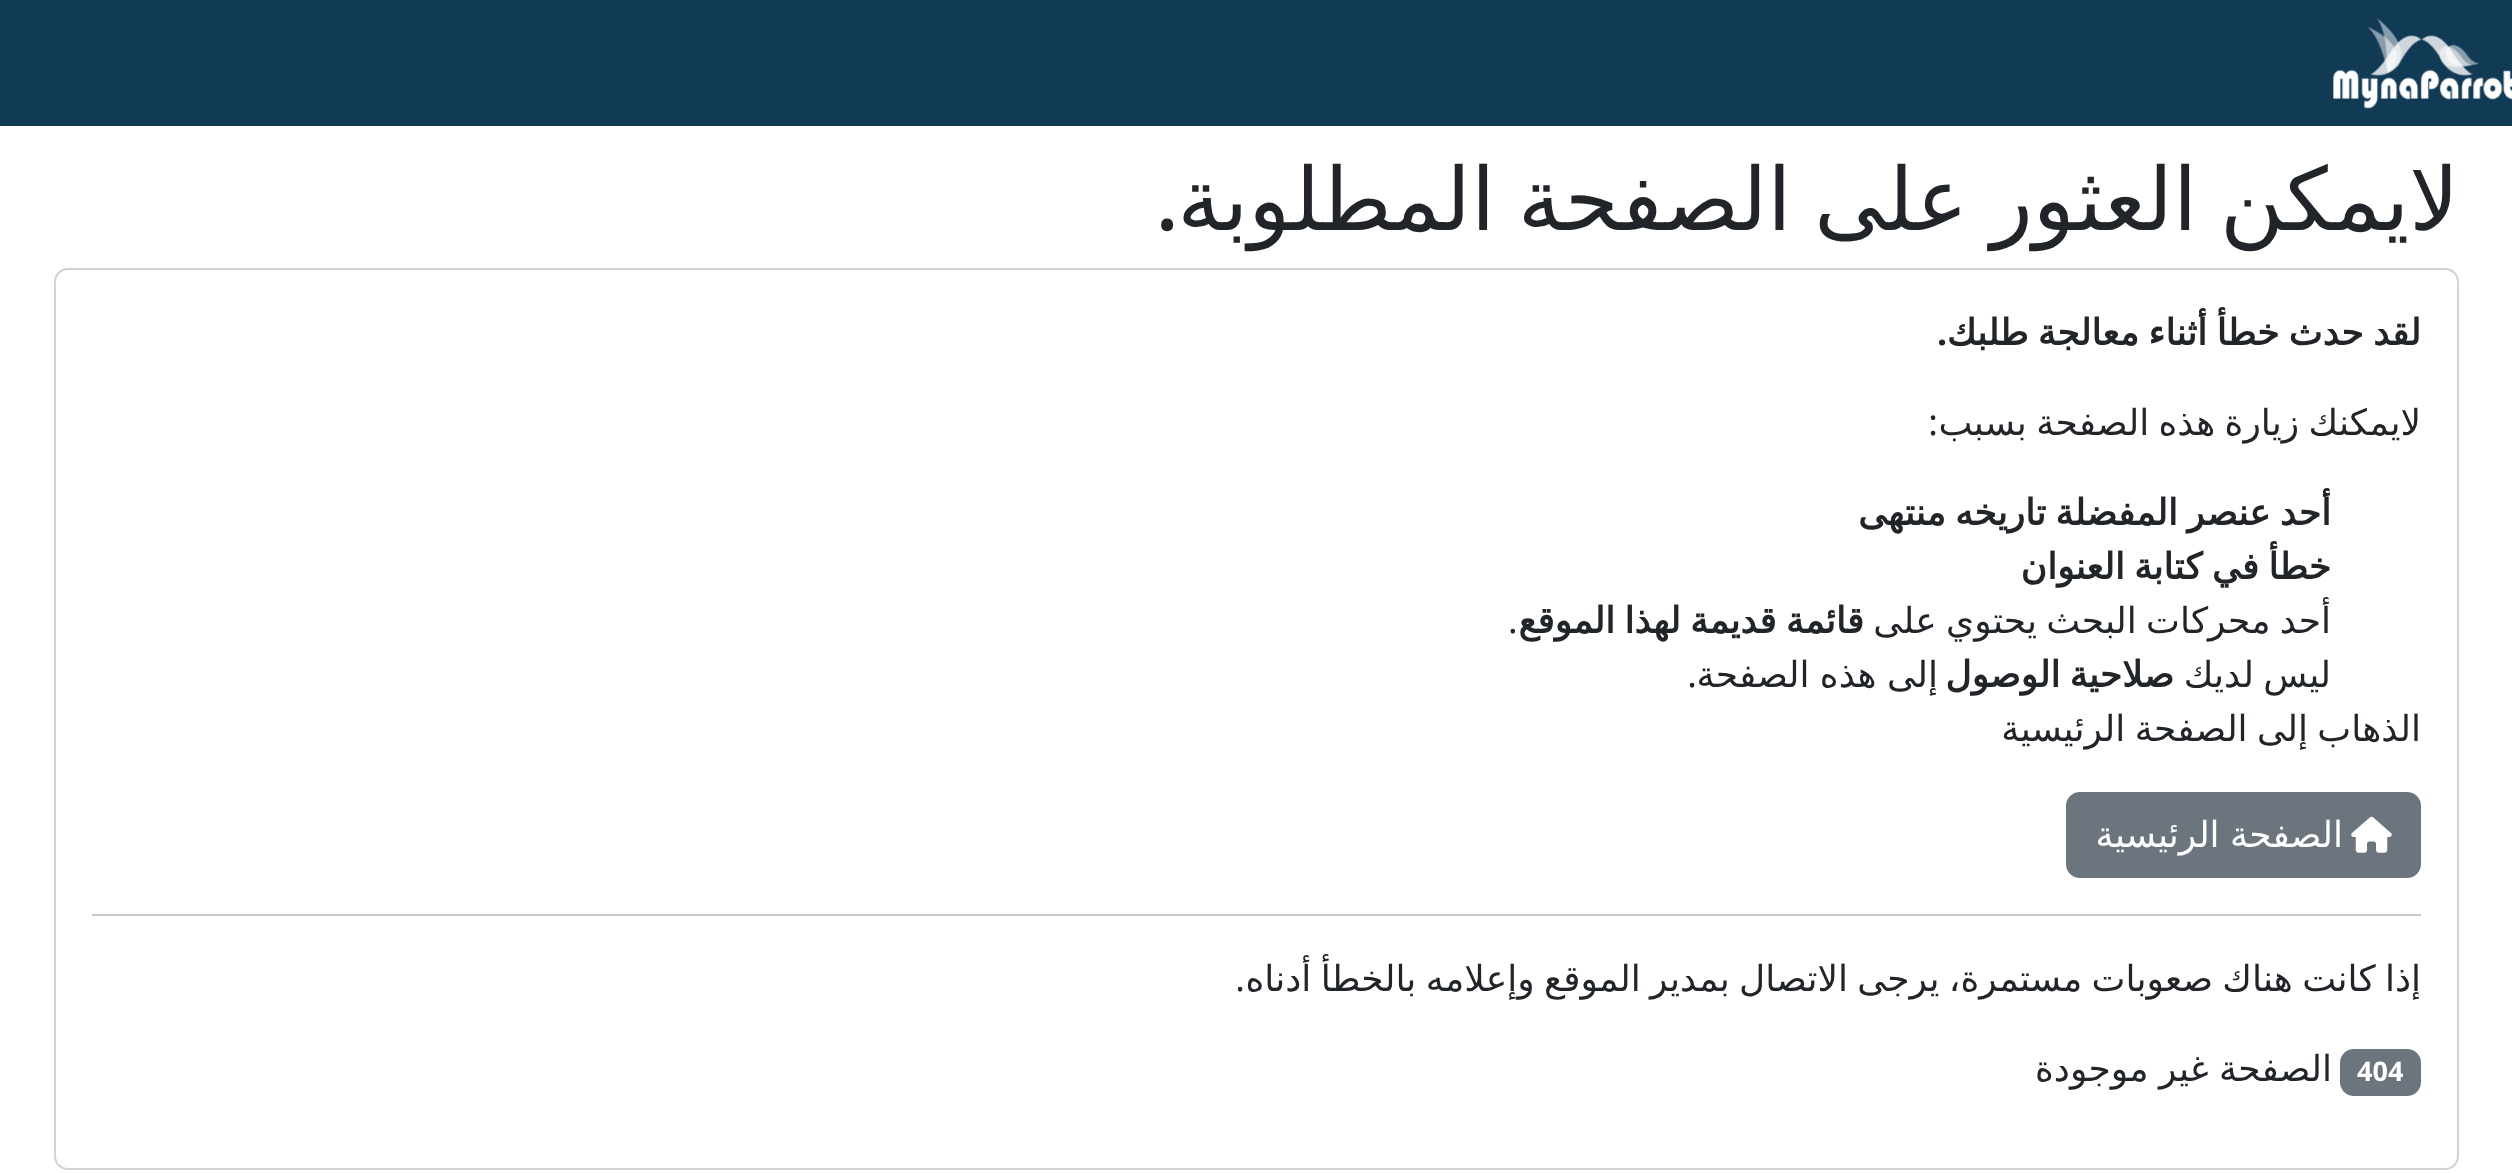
<svg xmlns="http://www.w3.org/2000/svg" width="2512" height="1173" viewBox="0 0 2512 1173">
  <rect width="100%" height="100%" fill="#fff"/>
  <path d="M0 0h2512v126H0z" fill="#113a55"/>
  <image x="2333" y="18" width="179" height="91" href="img/1.png"/>
  <rect x="55" y="269" width="2403" height="900" rx="13" fill="none" stroke="#d2d2d2" stroke-width="2"/>
  <rect x="2067" y="793" width="353" height="84" rx="13" fill="#6c757d" stroke="#6c757d" stroke-width="2"/>
  <image x="2351" y="816" width="41" height="37" href="img/2.png"/>
  <path d="M92 914h2329v2H92z" fill="#c8c9ca"/>
  <rect x="2340" y="1049" width="81" height="47" rx="14" fill="#6c757d"/>
  <text x="2459" y="230" word-spacing="-5" font-family="DejaVu Sans" font-size="87.25" direction="rtl" fill="#212529">لايمكن العثور على الصفحة المطلوبة</text>
  <text x="1179" y="230" font-family="Noto Sans" font-size="87.25" font-weight="500" direction="rtl" fill="#212529">.</text>
  <text x="2421" y="345" word-spacing="-2.1" font-family="DejaVu Sans" font-size="36" font-weight="bold" direction="rtl" fill="#212529">لقد حدث خطأ أثناء معالجة طلبك</text>
  <text x="1947" y="345" font-family="Noto Sans" font-size="36" font-weight="bold" direction="rtl" fill="#212529">.</text>
  <text x="2421" y="435" word-spacing="-2.1" font-family="DejaVu Sans" font-size="36" direction="rtl" fill="#212529">لايمكنك زيارة هذه الصفحة بسبب</text>
  <text x="1938" y="435" font-family="Noto Sans" font-size="36" direction="rtl" fill="#212529">:</text>
  <g font-family="DejaVu Sans" font-size="36" font-weight="bold" direction="rtl" fill="#212529">
    <text x="2331" y="525" word-spacing="-2.1">أحد عنصر المفضلة تاريخه منتهى</text>
    <text x="2331" y="579" word-spacing="-2.1">خطأ في كتابة العنوان</text>
  </g>
  <text x="2331" y="633" word-spacing="-2.1" font-family="DejaVu Sans" font-size="36" direction="rtl" fill="#212529">أحد محركات البحث يحتوي على</text>
  <text x="1864" y="633" word-spacing="-2.1" font-family="DejaVu Sans" font-size="36" font-weight="bold" direction="rtl" fill="#212529">قائمة قديمة لهذا الموقع</text>
  <text x="1508" y="633" font-family="Noto Sans" font-size="36" fill="#212529">.</text>
  <text x="2331" y="687" word-spacing="-2.1" font-family="DejaVu Sans" font-size="36" direction="rtl" fill="#212529">ليس لديك</text>
  <text x="2174" y="687" word-spacing="-2.1" font-family="DejaVu Sans" font-size="36" font-weight="bold" direction="rtl" fill="#212529">صلاحية الوصول</text>
  <text x="1938" y="687" word-spacing="-1" font-family="DejaVu Sans" font-size="36" direction="rtl" fill="#212529">إلى هذه الصفحة</text>
  <text x="1697" y="687" font-family="Noto Sans" font-size="36" direction="rtl" fill="#212529">.</text>
  <text x="2421" y="741" word-spacing="-2.1" font-family="DejaVu Sans" font-size="36" direction="rtl" fill="#212529">الذهاب إلى الصفحة الرئيسية</text>
  <text x="2343" y="847" word-spacing="-1" font-family="DejaVu Sans" font-size="36" direction="rtl" fill="#fff">الصفحة الرئيسية</text>
  <text x="2421" y="991" word-spacing="-2.1" font-family="DejaVu Sans" font-size="36" direction="rtl" fill="#212529">إذا كانت هناك صعوبات مستمرة، يرجى الاتصال بمدير الموقع وإعلامه بالخطأ أدناه</text>
  <text x="1245" y="991" font-family="Noto Sans" font-size="36" direction="rtl" fill="#212529">.</text>
  <text x="2357" y="1081" font-family="Noto Sans" font-size="27" font-weight="bold" fill="#fff">404</text>
  <text x="2332" y="1081" word-spacing="-1" font-family="DejaVu Sans" font-size="36" direction="rtl" fill="#212529">الصفحة غير موجودة</text>
</svg>
